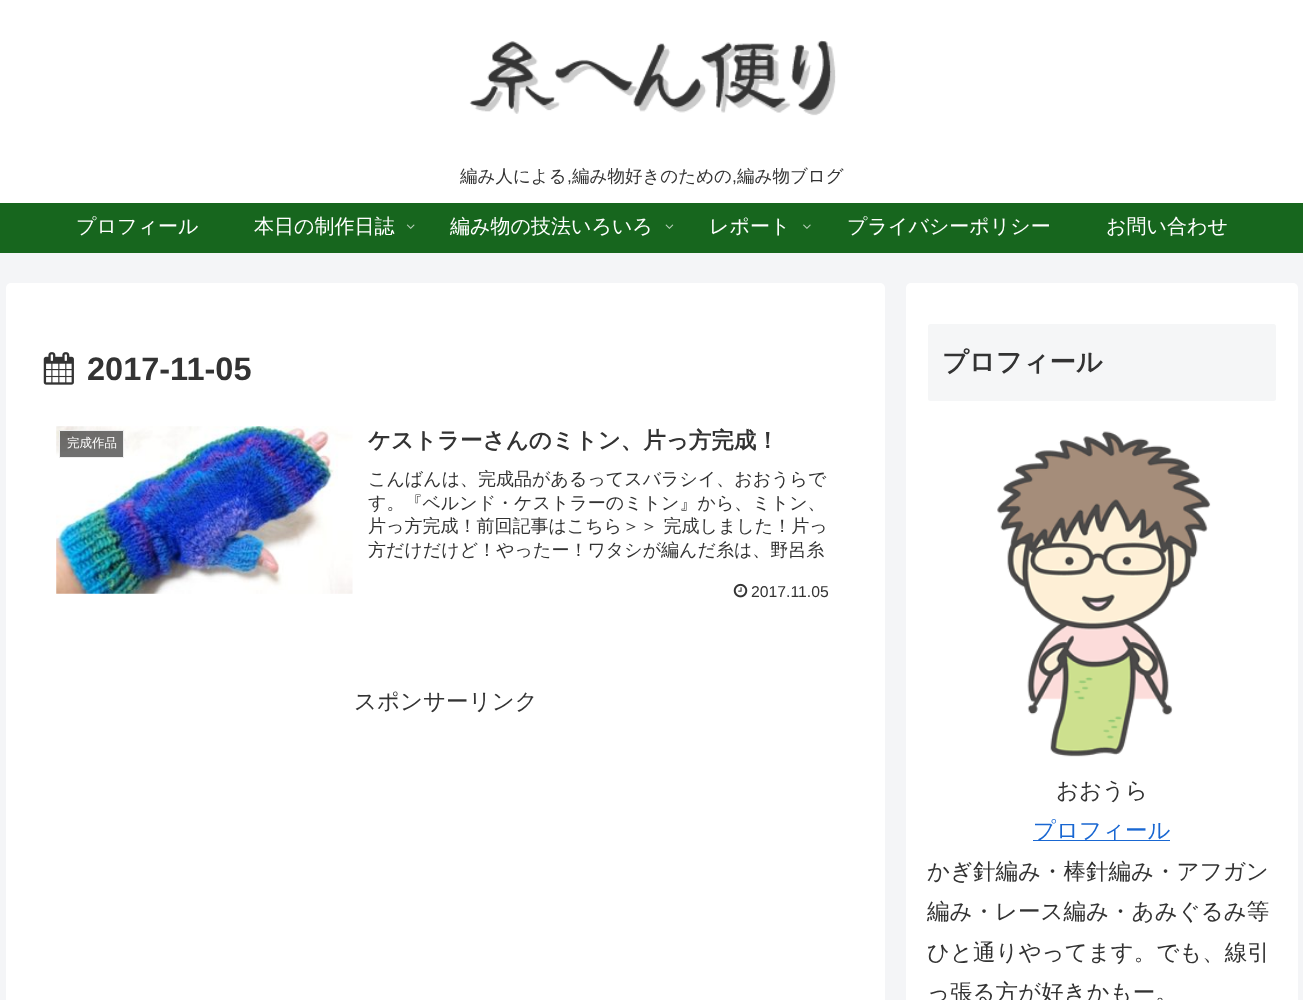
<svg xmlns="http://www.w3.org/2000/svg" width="1303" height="1000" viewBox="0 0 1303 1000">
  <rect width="100%" height="100%" fill="#f4f5f7"/>
  <path d="M0 0h1303v203H0z" fill="#fff"/>
  <image x="469" y="40" width="367" height="76" href="img/1.png"/>
  <path d="M0 203h1303v50H0z" fill="#17661e"/>
  <image x="406" y="224" width="9" height="5" href="img/2.png"/>
  <image x="665" y="224" width="9" height="5" href="img/3.png"/>
  <image x="803" y="224" width="8" height="5" href="img/4.png"/>
  <rect x="6" y="283" width="879" height="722" rx="5" fill="#fff"/>
  <image x="43" y="352" width="31" height="33" href="img/5.png"/>
  <image x="56" y="426" width="297" height="168" href="img/6.png"/>
  <path d="M59.5 430.5h64v27H59.5z" fill="#333333b3" stroke="#eee"/>
  <image x="733" y="583" width="15" height="15" href="img/7.png"/>
  <rect x="906" y="283" width="392" height="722" rx="5" fill="#fff"/>
  <rect x="928" y="324" width="348" height="77" rx="2.5" fill="#f5f6f7"/>
  <image x="997" y="431" width="214" height="326" href="img/8.png"/>
  <path d="M1033 840h137v1H1033z" fill="#1967d2"/>
  <text x="460" y="182" font-family="WenQuanYi Zen Hei" font-size="17.5" font-weight="500" fill="#333">編み人による</text>
  <text x="567" y="182" font-family="Liberation Sans" font-size="17.5" fill="#333">,</text>
  <text x="572" y="182" font-family="WenQuanYi Zen Hei" font-size="17.5" font-weight="500" fill="#333">編み物好きのための</text>
  <text x="732" y="182" font-family="Liberation Sans" font-size="17.5" fill="#333">,</text>
  <text x="737" y="182" font-family="WenQuanYi Zen Hei" font-size="17.5" font-weight="500" fill="#333">編み物ブログ</text>
  <g font-family="WenQuanYi Zen Hei" font-size="20" font-weight="500" fill="#fff">
    <text x="76" y="233">プロフィール</text>
    <text x="254" y="233">本日の制作日誌</text>
    <text x="450" y="233">編み物の技法いろいろ</text>
    <text x="709" y="233">レポート</text>
    <text x="847" y="233">プライバシーポリシー</text>
    <text x="1106" y="233">お問い合わせ</text>
  </g>
  <text x="87" y="380" font-family="Liberation Sans" font-size="32.5" font-weight="bold" fill="#333">2017-11-05</text>
  <text x="67" y="447" font-family="WenQuanYi Zen Hei" font-size="12.5" font-weight="500" fill="#fff">完成作品</text>
  <text x="368" y="448" font-family="WenQuanYi Zen Hei" font-size="22.5" font-weight="bold" fill="#333">ケストラーさんのミトン、片っ方完成！</text>
  <g font-family="WenQuanYi Zen Hei" font-size="18" font-weight="500" fill="#333">
    <text x="368" y="485">こんばんは、完成品があるってスバラシイ、おおうらで</text>
    <text x="368" y="509">す。『ベルンド・ケストラーのミトン』から、ミトン、</text>
    <text x="368" y="532">片っ方完成！前回記事はこちら＞＞ 完成しました！片っ</text>
    <text x="368" y="556">方だけだけど！やったー！ワタシが編んだ糸は、野呂糸</text>
  </g>
  <text x="751" y="597" font-family="Liberation Sans" font-size="15.75" fill="#333">2017.11.05</text>
  <text x="354" y="709" font-family="WenQuanYi Zen Hei" font-size="22.5" font-weight="500" fill="#333">スポンサーリンク</text>
  <text x="942" y="371" font-family="WenQuanYi Zen Hei" font-size="26.25" font-weight="bold" fill="#333">プロフィール</text>
  <text x="1056" y="798" font-family="WenQuanYi Zen Hei" font-size="22.5" font-weight="500" fill="#333">おおうら</text>
  <text x="1033" y="838" font-family="WenQuanYi Zen Hei" font-size="22.5" font-weight="500" fill="#1967d2">プロフィール</text>
  <g font-family="WenQuanYi Zen Hei" font-size="22.5" font-weight="500" fill="#333">
    <text x="927" y="879">かぎ針編み・棒針編み・アフガン</text>
    <text x="927" y="919">編み・レース編み・あみぐるみ等</text>
    <text x="927" y="960">ひと通りやってます。でも、線引</text>
    <text x="927" y="1000">っ張る方が好きかもー。</text>
  </g>
</svg>
